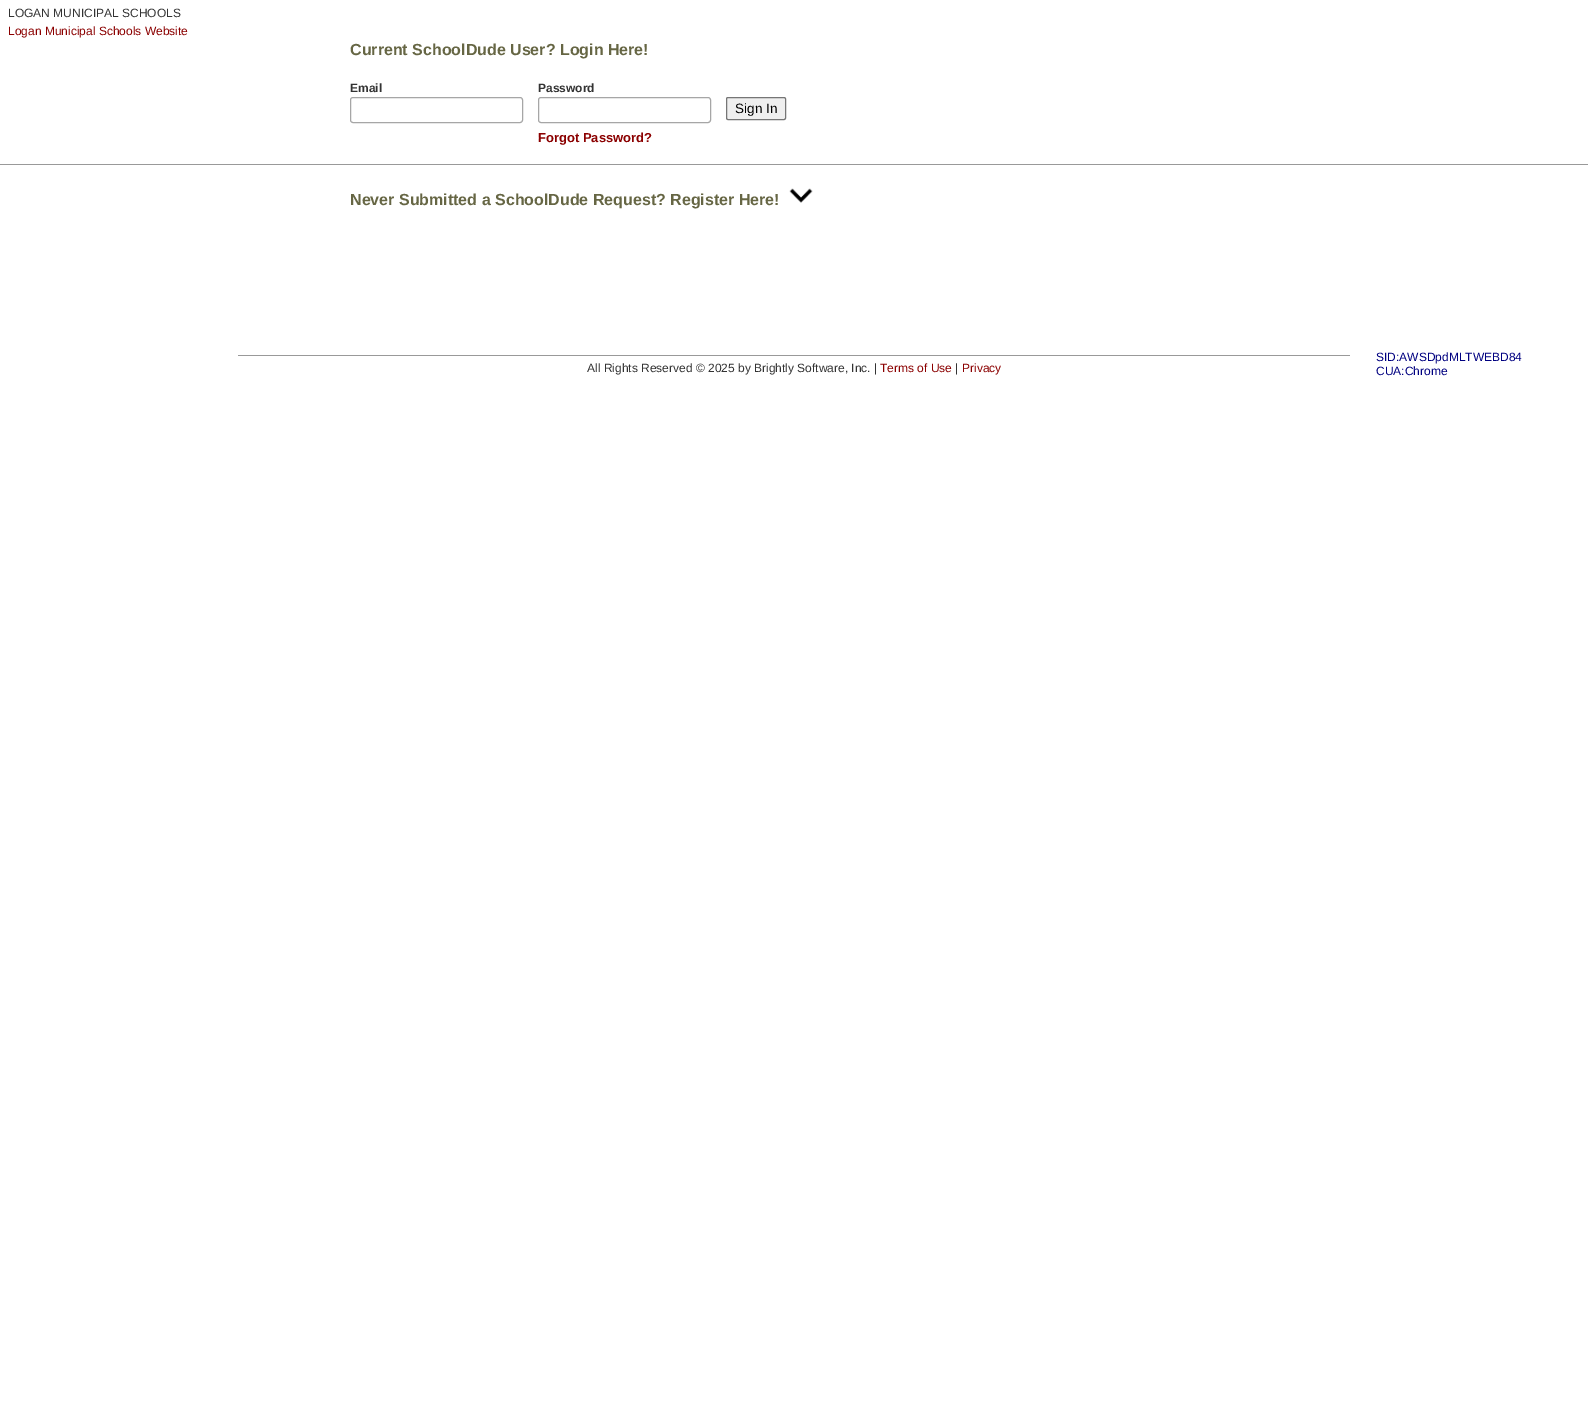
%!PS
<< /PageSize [1588 1422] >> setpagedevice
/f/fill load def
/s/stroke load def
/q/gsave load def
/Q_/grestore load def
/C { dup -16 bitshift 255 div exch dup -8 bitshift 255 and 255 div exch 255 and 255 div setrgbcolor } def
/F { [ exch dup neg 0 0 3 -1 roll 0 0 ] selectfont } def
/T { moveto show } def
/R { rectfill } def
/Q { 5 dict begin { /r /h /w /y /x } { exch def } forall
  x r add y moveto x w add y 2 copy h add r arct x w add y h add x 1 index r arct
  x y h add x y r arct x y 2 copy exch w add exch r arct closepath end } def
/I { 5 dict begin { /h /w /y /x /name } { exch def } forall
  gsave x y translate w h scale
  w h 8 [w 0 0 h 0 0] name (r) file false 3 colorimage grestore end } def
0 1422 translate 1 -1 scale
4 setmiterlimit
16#FFFFFF C
0 0 1588 1422 R
/LiberationSans-Regular 12 F
16#333333 C
(LOGAN MUNICIPAL SCHOOLS) 8 17 T
16#8B0000 C
(Logan Municipal Schools Website) 8 35 T
/LiberationSans-Bold 16 F
16#666644 C
(Current SchoolDude User? Login Here!) 350 55 T
/LiberationSans-Bold 12 F
16#333333 C
(Email) 350 92 T
16#A6A6A6 C
350.5 97.5 172 25 2.5 Q s
16#333333 C
(Password) 538 92 T
16#A6A6A6 C
538.5 97.5 172 25 2.5 Q s
/LiberationSans-Bold 13 F
16#8B0000 C
(Forgot Password?) 538 142 T
16#EFEFEF C
726.5 97.5 59 22 1.5 Q q f Q_
16#767676 C
s
/LiberationSans-Regular 13.5 F
16#000000 C
(Sign In) 735 113 T
16#999999 C
0 164 1588 1 R
/LiberationSans-Bold 16 F
16#666644 C
(Never Submitted a SchoolDude Request? Register Here!) 350 205 T
(1.rgb) 789 188 24 15 I
16#999999 C
238 355 1112 1 R
/LiberationSans-Regular 12 F
16#333333 C
(All Rights Reserved © 2025 by Brightly Software, Inc. |) 587 372 T
16#8B0000 C
(Terms of Use) 880 372 T
16#333333 C
(|) 955 372 T
16#8B0000 C
(Privacy) 962 372 T
16#000080 C
(SID:AWSDpdMLTWEBD84) 1376 361 T
(CUA:Chrome) 1376 375 T
showpage
